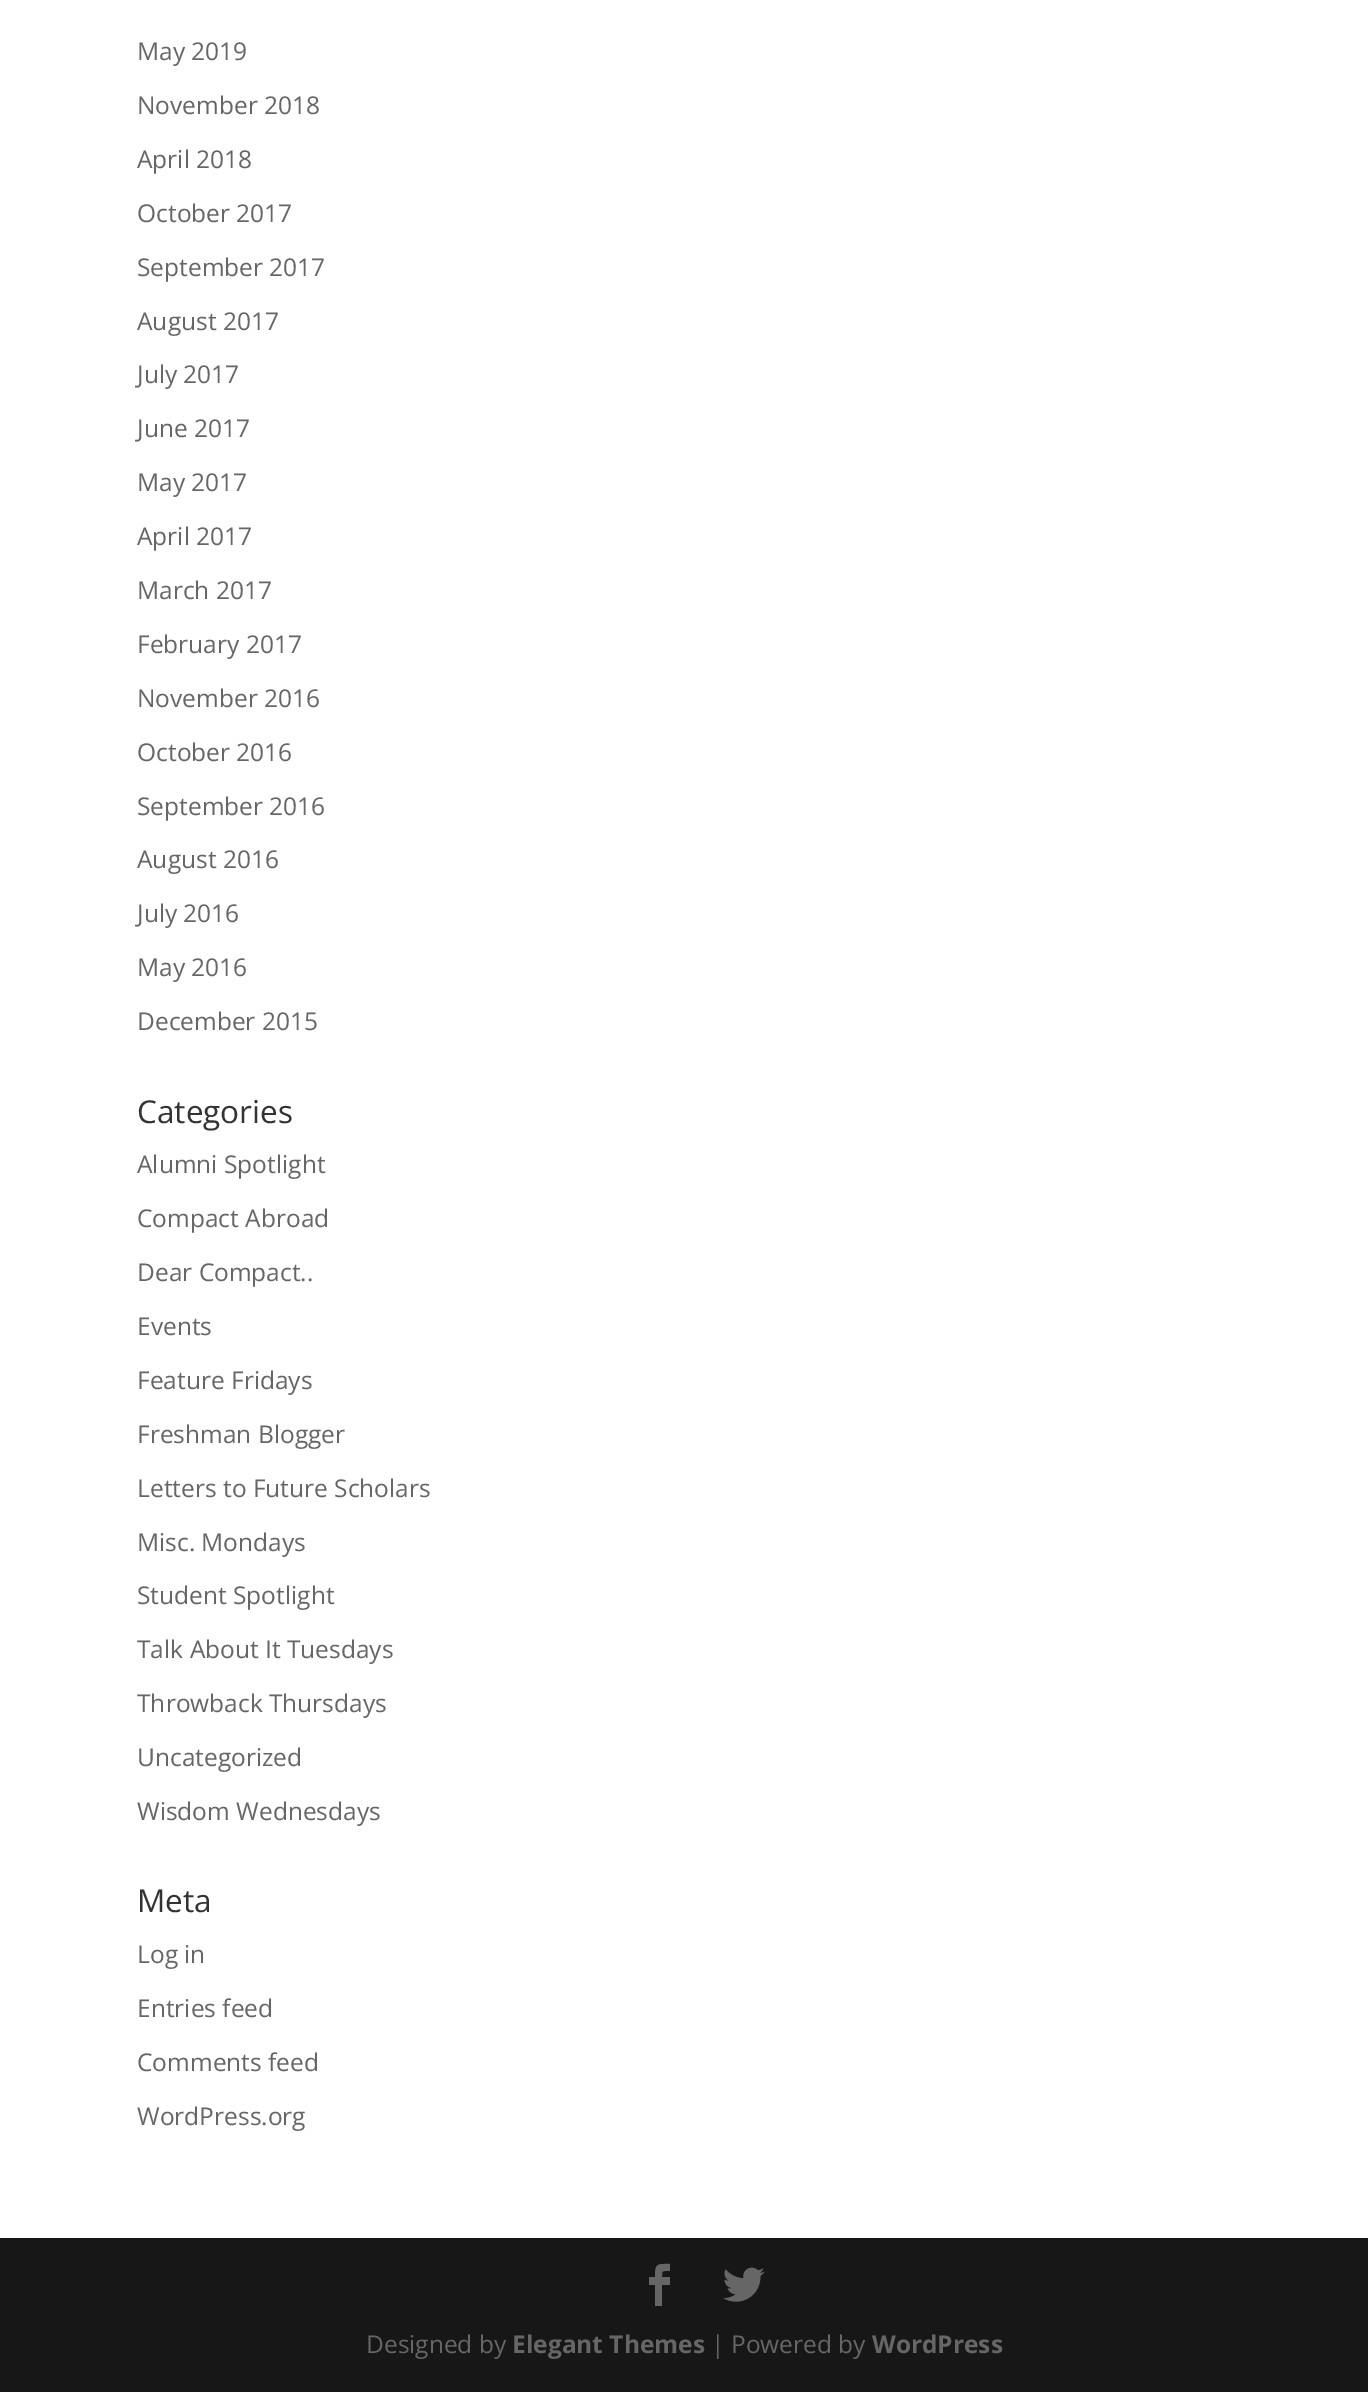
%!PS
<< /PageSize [1368 2392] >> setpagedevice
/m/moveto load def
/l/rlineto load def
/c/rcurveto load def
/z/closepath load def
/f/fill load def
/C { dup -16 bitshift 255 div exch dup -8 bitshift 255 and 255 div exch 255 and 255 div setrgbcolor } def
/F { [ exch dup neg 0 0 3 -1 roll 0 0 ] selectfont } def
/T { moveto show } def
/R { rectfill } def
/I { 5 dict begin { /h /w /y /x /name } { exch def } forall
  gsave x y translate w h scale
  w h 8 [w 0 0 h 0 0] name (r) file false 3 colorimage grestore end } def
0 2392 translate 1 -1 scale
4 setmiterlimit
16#FFFFFF C
0 0 1368 2392 R
/OpenSans-Regular 24.5 F
16#666666 C
(May 2019) 137 60 T
(November 2018) 137 114 T
(April 2018) 137 168 T
(October 2017) 137 222 T
(September 2017) 137 276 T
(August 2017) 137 330 T
(July 2017) 137 383 T
(June 2017) 137 437 T
(May 2017) 137 491 T
(April 2017) 137 545 T
(March 2017) 137 599 T
(February 2017) 137 653 T
(November 2016) 137 707 T
(October 2016) 137 761 T
(September 2016) 137 815 T
(August 2016) 137 868 T
(July 2016) 137 922 T
(May 2016) 137 976 T
(December 2015) 137 1030 T
/OpenSans-Regular 31.5 F
16#333333 C
(Categories) 137 1123 T
/OpenSans-Regular 24.5 F
16#666666 C
(Alumni Spotlight) 137 1173 T
(Compact Abroad) 137 1227 T
(Dear Compact..) 137 1281 T
(Events) 137 1335 T
(Feature Fridays) 137 1389 T
(Freshman Blogger) 137 1443 T
(Letters to Future Scholars) 137 1497 T
(Misc. Mondays) 137 1551 T
(Student Spotlight) 137 1604 T
(Talk About It Tuesdays) 137 1658 T
(Throwback Thursdays) 137 1712 T
(Uncategorized) 137 1766 T
(Wisdom Wednesdays) 137 1820 T
/OpenSans-Regular 31.5 F
16#333333 C
(Meta) 137 1912 T
/OpenSans-Regular 24.5 F
16#666666 C
(Log in) 137 1963 T
(Entries feed) 137 2017 T
(Comments feed) 137 2071 T
(WordPress.org) 137 2125 T
16#171717 C
0 2238 1368 154 R
16#666666 C
655 2306 m 7 0 l 0 -21 l 8 0 l 0 -8 l -8 0 l 0 -7 0 -6 8 -6 c 0 -7 l -13 0 -15 -1 -15 13 c -6 0 l 0 8 l 6 0 l z f
(1.rgb) 723 2267 42 35 I
(Designed by) 366 2353 T
/OpenSans-Bold 24.5 F
(Elegant Themes) 512 2353 T
/OpenSans-Regular 24.5 F
(| Powered by) 711 2353 T
/OpenSans-Bold 24.5 F
(WordPress) 872 2353 T
showpage
